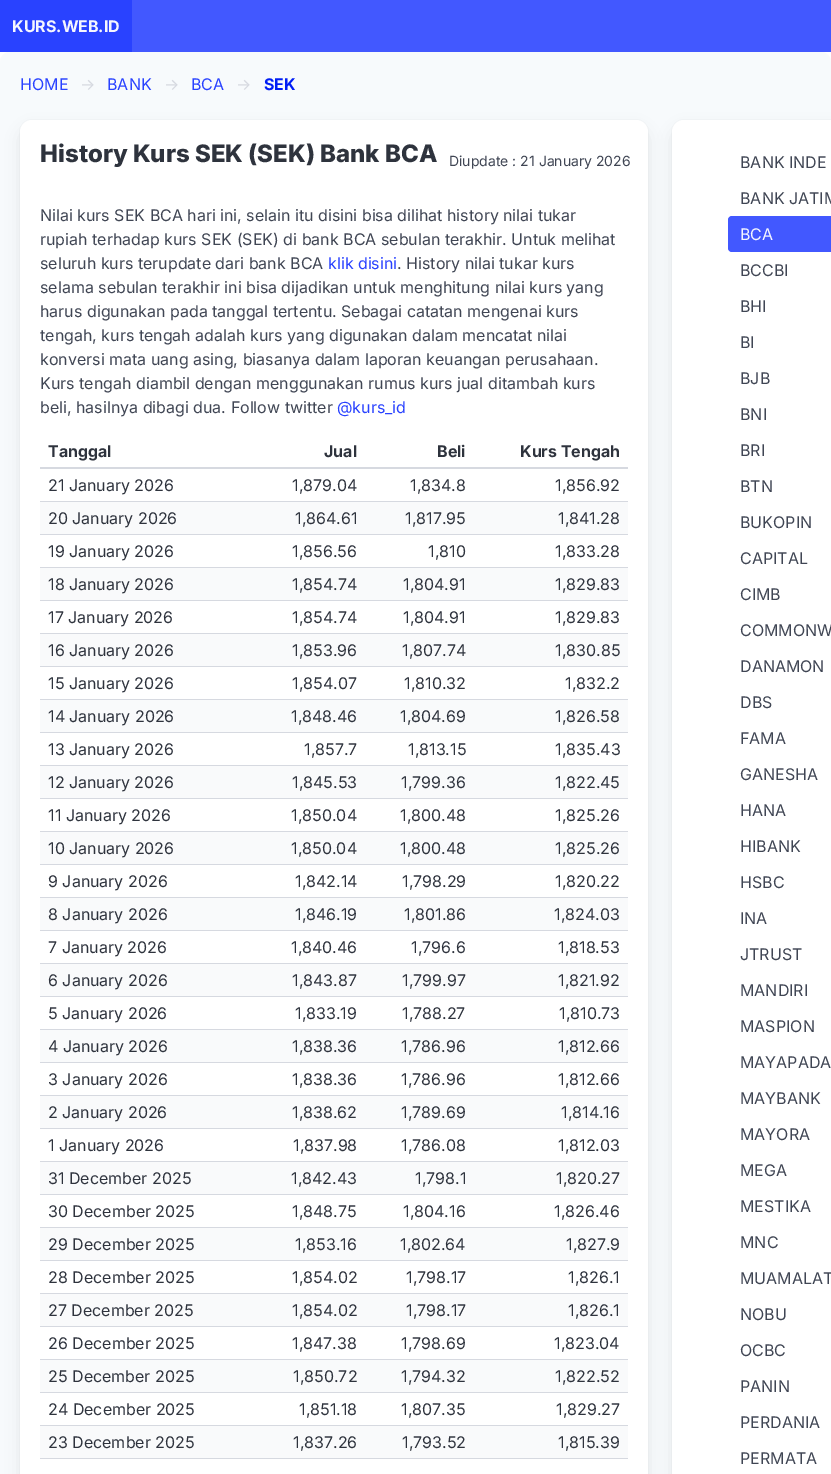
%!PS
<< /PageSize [831 1474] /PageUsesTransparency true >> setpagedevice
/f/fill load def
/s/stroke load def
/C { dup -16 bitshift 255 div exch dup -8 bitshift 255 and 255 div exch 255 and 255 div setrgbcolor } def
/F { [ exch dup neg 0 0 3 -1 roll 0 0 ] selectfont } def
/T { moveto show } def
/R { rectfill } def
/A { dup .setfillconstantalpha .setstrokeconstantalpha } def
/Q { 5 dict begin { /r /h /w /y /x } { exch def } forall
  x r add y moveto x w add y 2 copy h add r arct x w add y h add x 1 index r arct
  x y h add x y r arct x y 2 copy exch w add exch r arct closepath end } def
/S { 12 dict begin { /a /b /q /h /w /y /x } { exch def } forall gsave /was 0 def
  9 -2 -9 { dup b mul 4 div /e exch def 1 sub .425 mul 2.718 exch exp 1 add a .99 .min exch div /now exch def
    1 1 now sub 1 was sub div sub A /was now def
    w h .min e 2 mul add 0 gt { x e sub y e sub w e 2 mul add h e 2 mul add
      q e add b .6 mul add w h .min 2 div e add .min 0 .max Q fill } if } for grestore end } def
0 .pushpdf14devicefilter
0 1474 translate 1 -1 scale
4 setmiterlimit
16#FFFFFF C
0 0 831 1474 R
16#FAFAFA C
-.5 51.5 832 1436 12.5 Q s
16#4258FF C
132 0 699 52 R
16#2942FF C
0 0 132 52 R
/Inter-Bold 16 F
16#F5F6FF C
(KURS.WEB.ID) 12 32 T
16#F7FAFC C
0 52 831 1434 12 Q f
/Inter-Regular 16 F
16#2942FF C
(HOME) 20 90 T
16#D6D9E0 C
(→) 80 90 T
16#2942FF C
(BANK) 107 90 T
16#D6D9E0 C
(→) 164 90 T
16#2942FF C
(BCA) 191 90 T
16#D6D9E0 C
(→) 236 90 T
/Inter-Bold 16 F
16#001DF5 C
(SEK) 264 90 T
16#F2F5F7 C
19.5 119.5 629 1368 12.5 Q s
16#090A0C C
22 130 624 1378 10 8 .1 S
16#FFFFFF C
20 120 628 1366 12 Q f
/Inter-ExtraBold 24 F
16#2E333D C
(History Kurs SEK \(SEK\) Bank BCA) 40 162 T
/Inter-Regular 14 F
16#404654 C
(Diupdate : 21 January 2026) 449 166 T
/Inter-Regular 16 F
(Nilai kurs SEK BCA hari ini, selain itu disini bisa dilihat history nilai tukar) 40 221 T
(rupiah terhadap kurs SEK \(SEK\) di bank BCA sebulan terakhir. Untuk melihat) 40 245 T
(seluruh kurs terupdate dari bank BCA) 40 269 T
16#2942FF C
(klik disini) 328 269 T
16#404654 C
(. History nilai tukar kurs) 397 269 T
(selama sebulan terakhir ini bisa dijadikan untuk menghitung nilai kurs yang) 40 293 T
(harus digunakan pada tanggal tertentu. Sebagai catatan mengenai kurs) 40 317 T
(tengah, kurs tengah adalah kurs yang digunakan dalam mencatat nilai) 40 341 T
(konversi mata uang asing, biasanya dalam laporan keuangan perusahaan.) 40 365 T
(Kurs tengah diambil dengan menggunakan rumus kurs jual ditambah kurs) 40 389 T
(beli, hasilnya dibagi dua. Follow twitter) 40 413 T
16#2942FF C
(@kurs_id) 337 413 T
/Inter-Bold 16 F
16#2E333D C
(Tanggal) 48 457 T
(Jual) 324 457 T
(Beli) 437 457 T
16#D6D9E0 C
40 467 588 2 R
16#2E333D C
(Kurs Tengah) 520 457 T
/Inter-Regular 16 F
(21 January 2026) 48 491 T
(1,879.04) 292 491 T
(1,834.8) 410 491 T
16#D6D9E0 C
40 501 588 1 R
16#2E333D C
(1,856.92) 555 491 T
16#F9FAFB C
40 502 588 32 R
16#2E333D C
(20 January 2026) 48 524 T
(1,864.61) 295 524 T
(1,817.95) 405 524 T
16#D6D9E0 C
40 534 588 1 R
16#2E333D C
(1,841.28) 558 524 T
(19 January 2026) 48 557 T
(1,856.56) 292 557 T
(1,810) 428 557 T
16#D6D9E0 C
40 567 588 1 R
16#2E333D C
(1,833.28) 555 557 T
16#F9FAFB C
40 568 588 32 R
16#2E333D C
(18 January 2026) 48 590 T
(1,854.74) 292 590 T
(1,804.91) 403 590 T
16#D6D9E0 C
40 600 588 1 R
16#2E333D C
(1,829.83) 555 590 T
(17 January 2026) 48 623 T
(1,854.74) 292 623 T
(1,804.91) 403 623 T
16#D6D9E0 C
40 633 588 1 R
16#2E333D C
(1,829.83) 555 623 T
16#F9FAFB C
40 634 588 32 R
16#2E333D C
(16 January 2026) 48 656 T
(1,853.96) 292 656 T
(1,807.74) 402 656 T
16#D6D9E0 C
40 666 588 1 R
16#2E333D C
(1,830.85) 555 656 T
(15 January 2026) 48 689 T
(1,854.07) 292 689 T
(1,810.32) 404 689 T
16#D6D9E0 C
40 699 588 1 R
16#2E333D C
(1,832.2) 565 689 T
16#F9FAFB C
40 700 588 32 R
16#2E333D C
(14 January 2026) 48 722 T
(1,848.46) 291 722 T
(1,804.69) 400 722 T
16#D6D9E0 C
40 732 588 1 R
16#2E333D C
(1,826.58) 555 722 T
(13 January 2026) 48 755 T
(1,857.7) 304 755 T
(1,813.15) 408 755 T
16#D6D9E0 C
40 765 588 1 R
16#2E333D C
(1,835.43) 555 755 T
16#F9FAFB C
40 766 588 32 R
16#2E333D C
(12 January 2026) 48 788 T
(1,845.53) 292 788 T
(1,799.36) 401 788 T
16#D6D9E0 C
40 798 588 1 R
16#2E333D C
(1,822.45) 555 788 T
(11 January 2026) 48 821 T
(1,850.04) 291 821 T
(1,800.48) 400 821 T
16#D6D9E0 C
40 831 588 1 R
16#2E333D C
(1,825.26) 555 821 T
16#F9FAFB C
40 832 588 32 R
16#2E333D C
(10 January 2026) 48 854 T
(1,850.04) 291 854 T
(1,800.48) 400 854 T
16#D6D9E0 C
40 864 588 1 R
16#2E333D C
(1,825.26) 555 854 T
(9 January 2026) 48 887 T
(1,842.14) 295 887 T
(1,798.29) 402 887 T
16#D6D9E0 C
40 897 588 1 R
16#2E333D C
(1,820.22) 555 887 T
16#F9FAFB C
40 898 588 32 R
16#2E333D C
(8 January 2026) 48 920 T
(1,846.19) 295 920 T
(1,801.86) 404 920 T
16#D6D9E0 C
40 930 588 1 R
16#2E333D C
(1,824.03) 554 920 T
(7 January 2026) 48 953 T
(1,840.46) 291 953 T
(1,796.6) 411 953 T
16#D6D9E0 C
40 963 588 1 R
16#2E333D C
(1,818.53) 558 953 T
16#F9FAFB C
40 964 588 32 R
16#2E333D C
(6 January 2026) 48 986 T
(1,843.87) 292 986 T
(1,799.97) 402 986 T
16#D6D9E0 C
40 996 588 1 R
16#2E333D C
(1,821.92) 558 986 T
(5 January 2026) 48 1019 T
(1,833.19) 295 1019 T
(1,788.27) 402 1019 T
16#D6D9E0 C
40 1029 588 1 R
16#2E333D C
(1,810.73) 559 1019 T
16#F9FAFB C
40 1030 588 32 R
16#2E333D C
(4 January 2026) 48 1052 T
(1,838.36) 292 1052 T
(1,786.96) 401 1052 T
16#D6D9E0 C
40 1062 588 1 R
16#2E333D C
(1,812.66) 558 1052 T
(3 January 2026) 48 1085 T
(1,838.36) 292 1085 T
(1,786.96) 401 1085 T
16#D6D9E0 C
40 1095 588 1 R
16#2E333D C
(1,812.66) 558 1085 T
16#F9FAFB C
40 1096 588 32 R
16#2E333D C
(2 January 2026) 48 1118 T
(1,838.62) 292 1118 T
(1,789.69) 401 1118 T
16#D6D9E0 C
40 1128 588 1 R
16#2E333D C
(1,814.16) 561 1118 T
(1 January 2026) 48 1151 T
(1,837.98) 293 1151 T
(1,786.08) 401 1151 T
16#D6D9E0 C
40 1161 588 1 R
16#2E333D C
(1,812.03) 558 1151 T
16#F9FAFB C
40 1162 588 32 R
16#2E333D C
(31 December 2025) 48 1184 T
(1,842.43) 291 1184 T
(1,798.1) 415 1184 T
16#D6D9E0 C
40 1194 588 1 R
16#2E333D C
(1,820.27) 556 1184 T
(30 December 2025) 48 1217 T
(1,848.75) 292 1217 T
(1,804.16) 403 1217 T
16#D6D9E0 C
40 1227 588 1 R
16#2E333D C
(1,826.46) 554 1217 T
16#F9FAFB C
40 1228 588 32 R
16#2E333D C
(29 December 2025) 48 1250 T
(1,853.16) 295 1250 T
(1,802.64) 400 1250 T
16#D6D9E0 C
40 1260 588 1 R
16#2E333D C
(1,827.9) 566 1250 T
(28 December 2025) 48 1283 T
(1,854.02) 292 1283 T
(1,798.17) 406 1283 T
16#D6D9E0 C
40 1293 588 1 R
16#2E333D C
(1,826.1) 568 1283 T
16#F9FAFB C
40 1294 588 32 R
16#2E333D C
(27 December 2025) 48 1316 T
(1,854.02) 292 1316 T
(1,798.17) 406 1316 T
16#D6D9E0 C
40 1326 588 1 R
16#2E333D C
(1,826.1) 568 1316 T
(26 December 2025) 48 1349 T
(1,847.38) 292 1349 T
(1,798.69) 401 1349 T
16#D6D9E0 C
40 1359 588 1 R
16#2E333D C
(1,823.04) 554 1349 T
16#F9FAFB C
40 1360 588 32 R
16#2E333D C
(25 December 2025) 48 1382 T
(1,850.72) 293 1382 T
(1,794.32) 401 1382 T
16#D6D9E0 C
40 1392 588 1 R
16#2E333D C
(1,822.52) 555 1382 T
(24 December 2025) 48 1415 T
(1,851.18) 299 1415 T
(1,807.35) 401 1415 T
16#D6D9E0 C
40 1425 588 1 R
16#2E333D C
(1,829.27) 556 1415 T
16#F9FAFB C
40 1426 588 32 R
16#2E333D C
(23 December 2025) 48 1448 T
(1,837.26) 293 1448 T
(1,793.52) 402 1448 T
16#D6D9E0 C
40 1458 588 1 R
16#2E333D C
(1,815.39) 558 1448 T
16#F2F5F7 C
671.5 119.5 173 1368 12.5 Q s
16#090A0C C
674 130 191 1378 10 8 .1 S
16#FFFFFF C
672 120 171 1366 12 Q f
16#404654 C
(BANK INDE) 740 168 T
(BANK JATIM) 740 204 T
16#4258FF C
728 216 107 36 4 Q f
16#F5F6FF C
(BCA) 740 240 T
16#404654 C
(BCCBI) 740 276 T
(BHI) 740 312 T
(BI) 740 348 T
(BJB) 740 384 T
(BNI) 740 420 T
(BRI) 740 456 T
(BTN) 740 492 T
(BUKOPIN) 740 528 T
(CAPITAL) 740 564 T
(CIMB) 740 600 T
(COMMONW) 740 636 T
(DANAMON) 740 672 T
(DBS) 740 708 T
(FAMA) 740 744 T
(GANESHA) 740 780 T
(HANA) 740 816 T
(HIBANK) 740 852 T
(HSBC) 740 888 T
(INA) 740 924 T
(JTRUST) 740 960 T
(MANDIRI) 740 996 T
(MASPION) 740 1032 T
(MAYAPADA) 740 1068 T
(MAYBANK) 740 1104 T
(MAYORA) 740 1140 T
(MEGA) 740 1176 T
(MESTIKA) 740 1212 T
(MNC) 740 1248 T
(MUAMALAT) 740 1284 T
(NOBU) 740 1320 T
(OCBC) 740 1356 T
(PANIN) 740 1392 T
(PERDANIA) 740 1428 T
(PERMATA) 740 1464 T
.poppdf14devicefilter showpage
